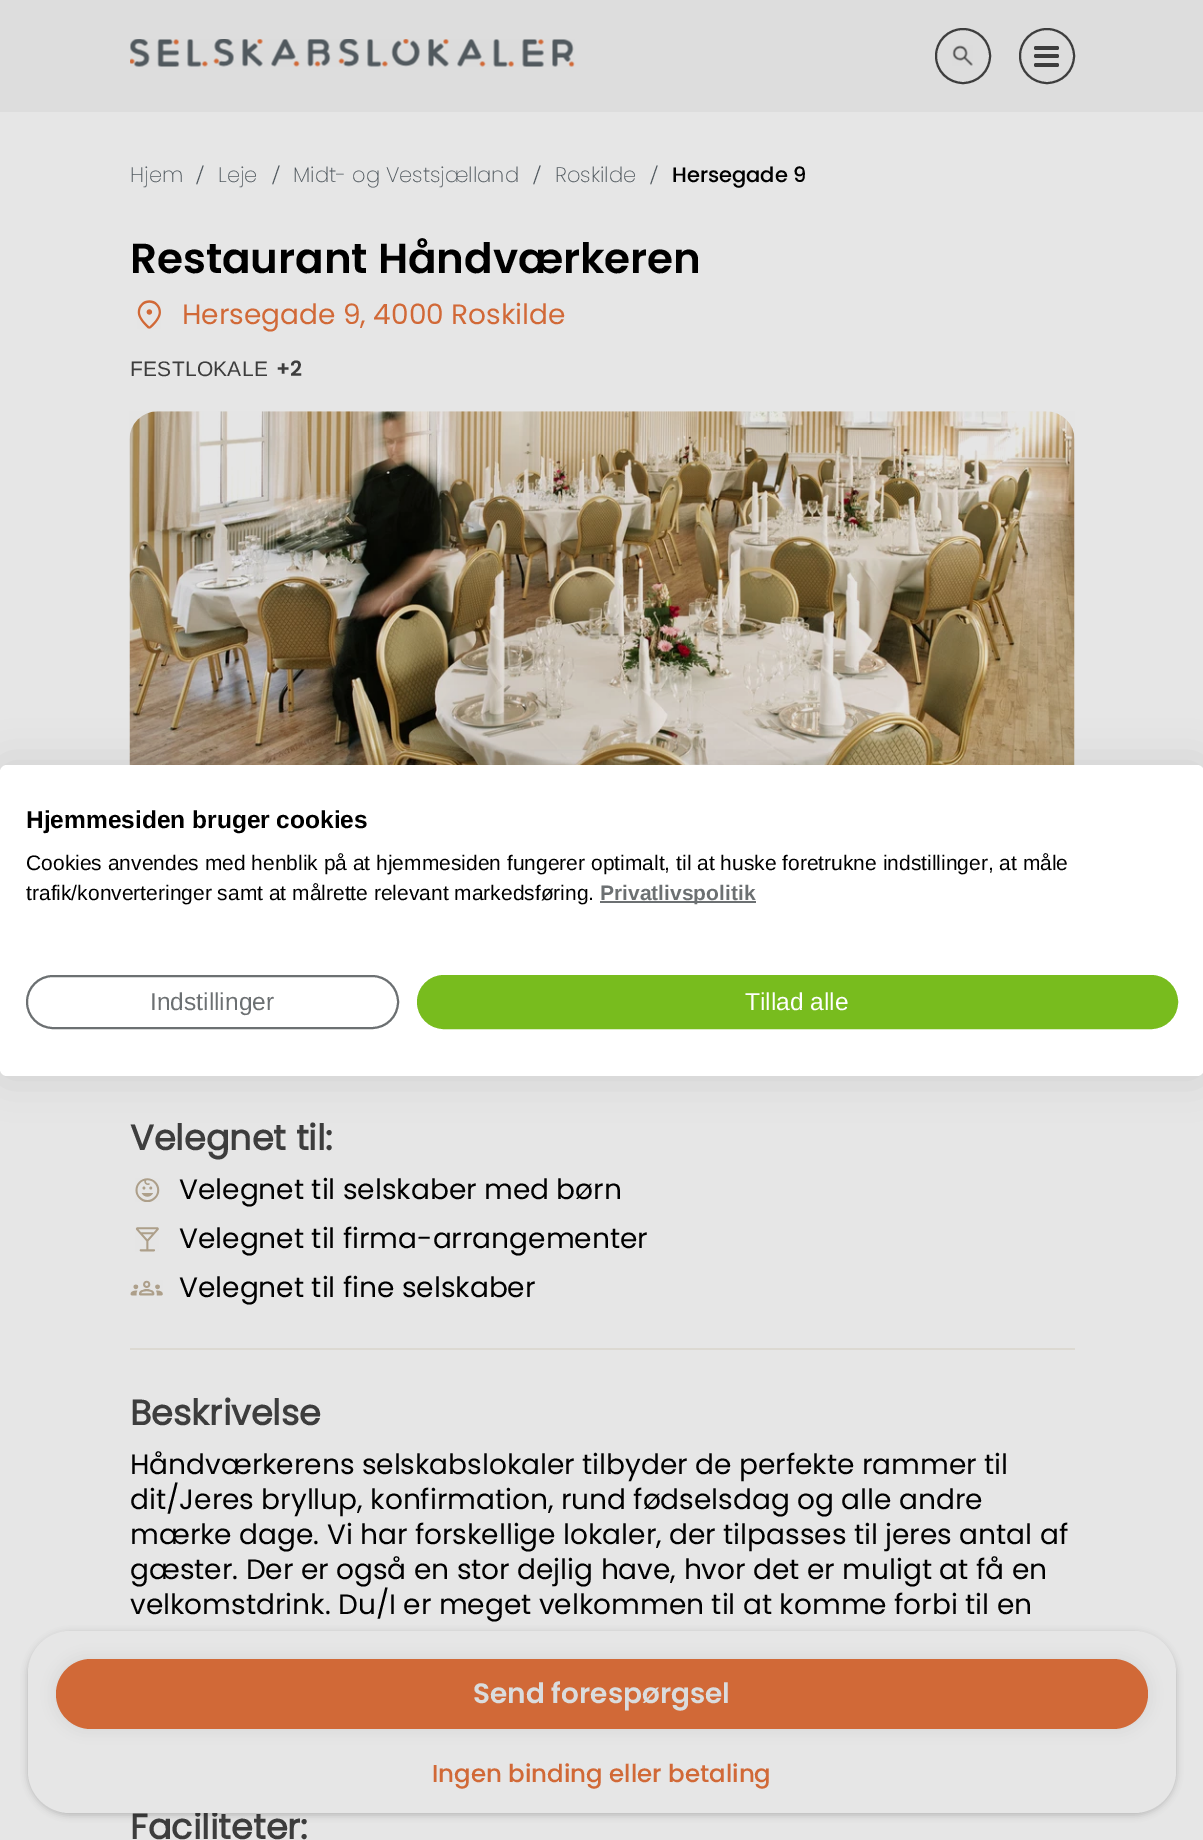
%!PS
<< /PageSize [1203 1840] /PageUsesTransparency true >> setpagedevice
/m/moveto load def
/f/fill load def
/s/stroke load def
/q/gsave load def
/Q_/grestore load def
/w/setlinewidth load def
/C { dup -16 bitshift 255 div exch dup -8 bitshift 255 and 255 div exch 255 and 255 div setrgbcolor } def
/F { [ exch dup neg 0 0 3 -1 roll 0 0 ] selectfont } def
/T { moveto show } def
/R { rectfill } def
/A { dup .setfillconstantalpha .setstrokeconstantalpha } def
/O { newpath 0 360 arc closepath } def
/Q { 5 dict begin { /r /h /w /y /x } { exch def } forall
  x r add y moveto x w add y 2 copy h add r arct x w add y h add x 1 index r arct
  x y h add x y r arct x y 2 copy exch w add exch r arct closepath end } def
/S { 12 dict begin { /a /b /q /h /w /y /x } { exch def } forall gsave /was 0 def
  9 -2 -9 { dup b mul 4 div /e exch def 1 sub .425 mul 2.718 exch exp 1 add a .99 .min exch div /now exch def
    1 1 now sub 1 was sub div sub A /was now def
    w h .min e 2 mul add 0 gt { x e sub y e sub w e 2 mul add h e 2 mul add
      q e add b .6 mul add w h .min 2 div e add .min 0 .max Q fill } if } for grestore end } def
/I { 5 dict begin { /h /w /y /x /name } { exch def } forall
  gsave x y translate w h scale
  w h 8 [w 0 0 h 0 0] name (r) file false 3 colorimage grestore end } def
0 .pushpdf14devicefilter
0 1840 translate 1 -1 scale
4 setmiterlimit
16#E6E6E6 C
0 0 1203 1840 R
16#DDDDDD C
0 0 1203 112 R
(1.rgb) 130 39 445 28 I
16#3D3D3D C
2 w
963 56 27 O s
(2.rgb) 952 45 21 21 I
1047 56 27 O s
1034 46 25 4 2 Q f
1034 54 25 4 2 Q f
1034 63 25 4 2 Q f
/Poppins-ExtraLight 21 F
16#51595F C
(Hjem) 130 182 T
/LiberationSerif-Regular 28 F
(/) 196 184 T
/Poppins-ExtraLight 21 F
(Leje) 218 182 T
/LiberationSerif-Regular 28 F
(/) 272 184 T
/Poppins-ExtraLight 21 F
(Midt- og Vestsjælland) 293 182 T
/LiberationSerif-Regular 28 F
(/) 533 184 T
/Poppins-ExtraLight 21 F
(Roskilde) 555 182 T
/LiberationSerif-Regular 28 F
(/) 650 184 T
/Poppins-Medium 21 F
16#000000 C
(Hersegade 9) 672 182 T
/Poppins-SemiBold 42 F
(Restaurant Håndværkeren) 130 273 T
(3.rgb) 137 300 24 29 I
/Poppins-Regular 28 F
16#D16937 C
(Hersegade 9, 4000 Roskilde) 182 324 T
/LiberationSans-Regular 21 F
16#3D3D3D C
130 376 m .25 0 (FESTLOKALE) ashow
/Poppins-SemiBold 21 F
276 376 m .25 0 (+2) ashow
(4.rgb) 129 411 946 354 I
16#DCD9D2 C
130 1348 945 2 R
/Poppins-Bold 35 F
16#3D3D3D C
(Velegnet til:) 130 1150 T
(5.rgb) 135 1178 25 24 I
/Poppins-Regular 28 F
16#000000 C
(Velegnet til selskaber med børn) 179 1199 T
(6.rgb) 135 1227 24 25 I
(Velegnet til firma-arrangementer) 179 1248 T
(7.rgb) 130 1280 33 16 I
(Velegnet til fine selskaber) 179 1297 T
/Poppins-Bold 35 F
16#3D3D3D C
(Beskrivelse) 130 1425 T
/Poppins-Regular 28 F
16#000000 C
(Håndværkerens selskabslokaler tilbyder de perfekte rammer til) 130 1474 T
(dit/Jeres bryllup, konfirmation, rund fødselsdag og alle andre) 130 1509 T
(mærke dage. Vi har forskellige lokaler, der tilpasses til jeres antal af) 130 1544 T
(gæster. Der er også en stor dejlig have, hvor det er muligt at få en) 130 1579 T
(velkomstdrink. Du/I er meget velkommen til at komme forbi til en) 130 1614 T
/Poppins-Bold 35 F
16#3D3D3D C
(Faciliteter:) 130 1839 T
16#000000 C
28 1633 1148 182 42 3.5 .2 S
16#E6E6E6 C
28 1631 1148 182 42 Q f
16#121212 C
56 1659 1092 70 35 7 .08 S
16#D16937 C
56 1659 1092 70 35 Q f
/Poppins-SemiBold 28 F
16#DADCDD C
(Send forespørgsel) 473 1703 T
/Poppins-Medium 24.5 F
16#D16937 C
(Ingen binding eller betaling) 432 1782 T
16#000000 C
0 765 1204 311 7 21 .1 S
16#FFFFFF C
0 765 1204 311 7 Q f
/LiberationSans-Bold 24.5 F
16#000000 C
(Hjemmesiden bruger cookies) 26 828 T
/LiberationSans-Regular 21 F
(Cookies anvendes med henblik på at hjemmesiden fungerer optimalt, til at huske foretrukne indstillinger, at måle) 26 870 T
(trafik/konverteringer samt at målrette relevant markedsføring.) 26 900 T
16#6C7072 C
600 901 156 2 R
/LiberationSans-Bold 21 F
(Privatlivspolitik) 600 900 T
27 976 371 52 26 Q s
/LiberationSans-Regular 24.5 F
(Indstillinger) 150 1010 T
16#78BC1E C
418 976 759 52 26 Q q f Q_
s
16#FFFFFF C
(Tillad alle) 745 1010 T
.poppdf14devicefilter showpage
